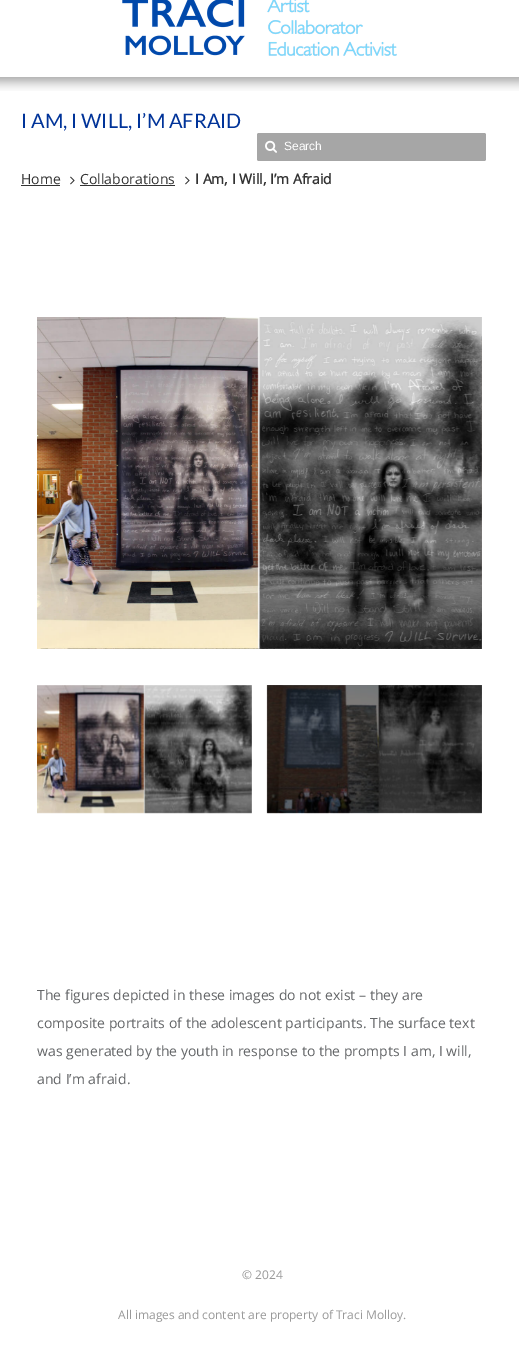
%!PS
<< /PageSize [519 1366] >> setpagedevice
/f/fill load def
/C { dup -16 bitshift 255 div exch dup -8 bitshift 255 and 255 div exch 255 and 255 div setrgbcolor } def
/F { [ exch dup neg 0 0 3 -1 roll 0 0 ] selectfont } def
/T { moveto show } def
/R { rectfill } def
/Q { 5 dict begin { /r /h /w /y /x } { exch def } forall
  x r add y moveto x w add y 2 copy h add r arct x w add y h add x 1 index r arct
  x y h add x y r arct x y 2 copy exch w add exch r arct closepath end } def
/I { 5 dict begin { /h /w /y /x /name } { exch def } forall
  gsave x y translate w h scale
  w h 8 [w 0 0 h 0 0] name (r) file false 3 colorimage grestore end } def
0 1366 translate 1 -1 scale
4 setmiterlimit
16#FFFFFF C
0 0 519 1366 R
(1.rgb) 122 0 275 56 I
16#808080 C
267 685 215 128 R
(2.rgb) 0 77 519 14 I
/Lato-Regular 20 F
16#003399 C
(I AM, I WILL, I’M AFRAID) 21 128 T
16#A6A6A6 C
257 133 229 28 2 Q f
(3.rgb) 265 140 12 13 I
/LiberationSans-Regular 12 F
16#FFFFFF C
(Search) 284 150 T
/OpenSans-Regular 14 F
16#333333 C
(Home) 21 184 T
21 185 39 1 R
(4.rgb) 70 176 5 9 I
(Collaborations) 80 184 T
80 185 95 1 R
(4.rgb) 185 176 5 9 I
/OpenSans-Bold 14 F
(I Am, I Will, I’m Afraid) 195 184 T
(5.rgb) 37 317 445 332 I
(6.rgb) 481 336 1 292 I
(7.rgb) 37 685 215 129 I
(8.rgb) 266 685 216 129 I
/OpenSans-Regular 14 F
16#646668 C
(The figures depicted in these images do not exist – they are) 37 1000 T
(composite portraits of the adolescent participants. The surface text) 37 1028 T
(was generated by the youth in response to the prompts I am, I will,) 37 1056 T
(and I’m afraid.) 37 1084 T
/OpenSans-Regular 12 F
16#999999 C
(© 2024) 242 1279 T
(All images and content are property of Traci Molloy.) 118 1319 T
showpage
